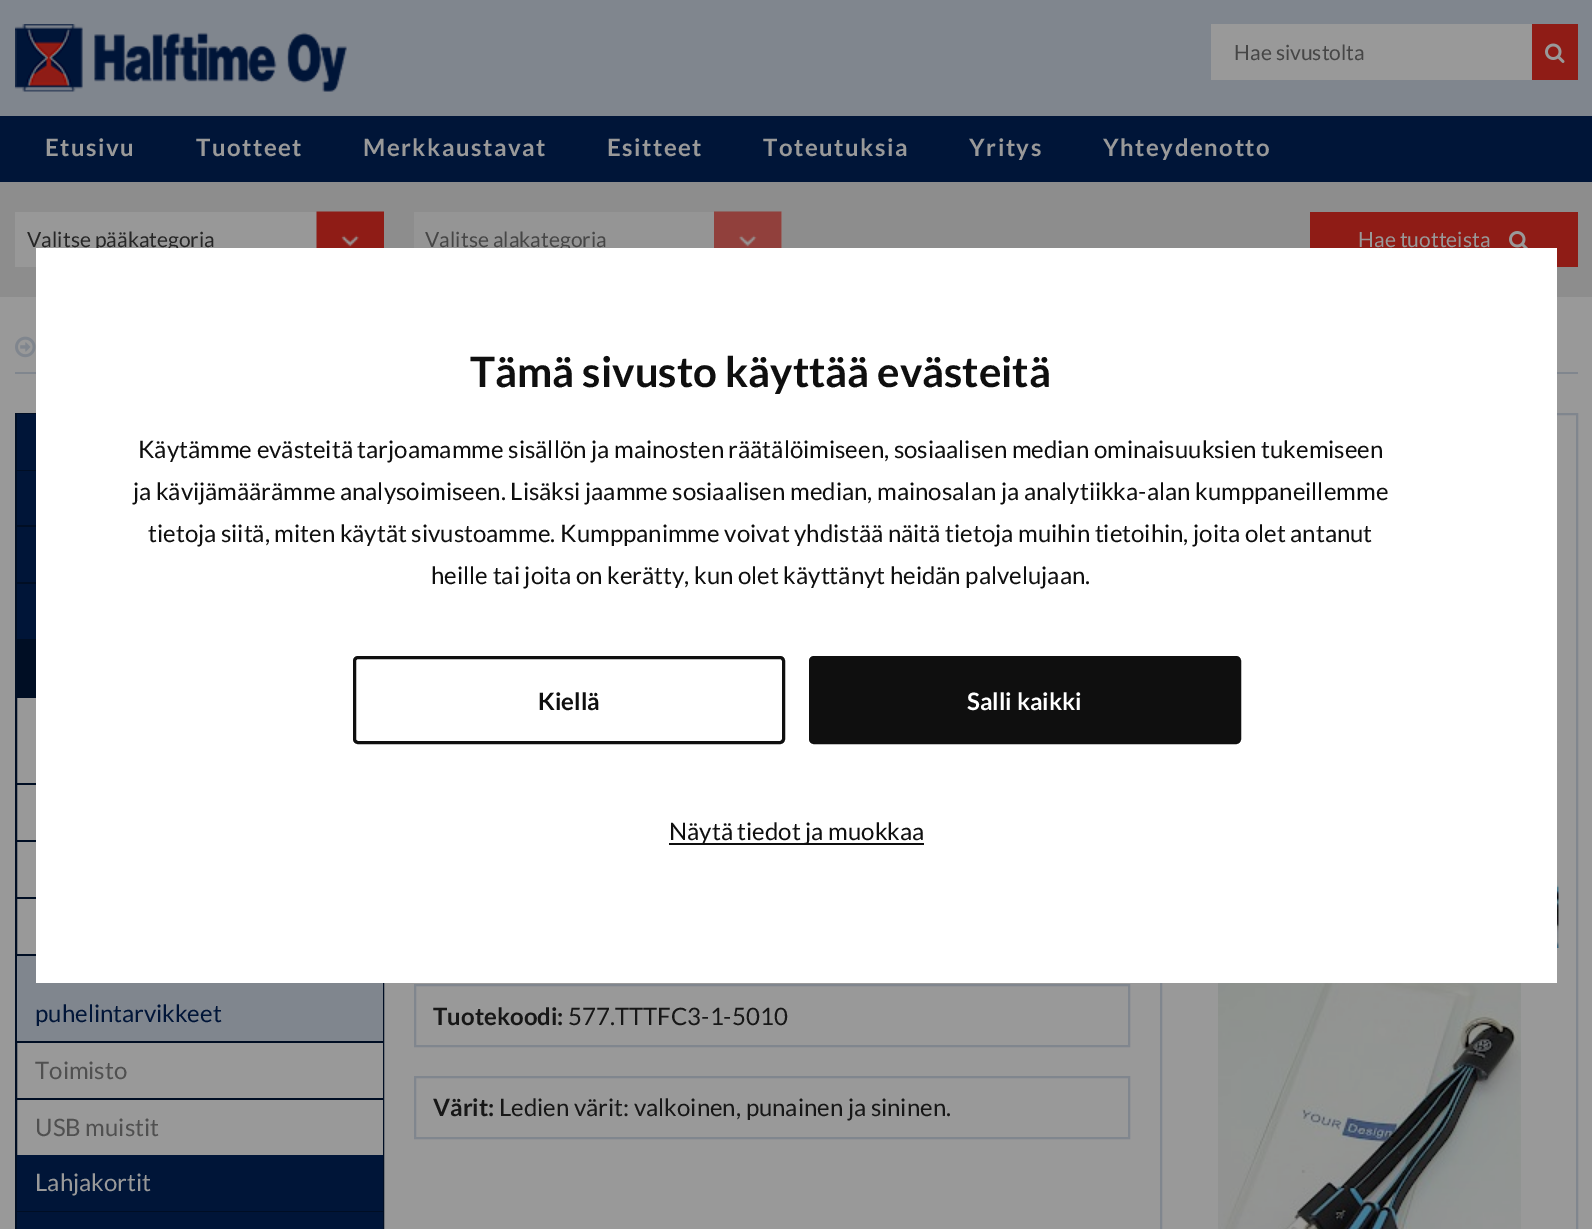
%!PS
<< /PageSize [1592 1229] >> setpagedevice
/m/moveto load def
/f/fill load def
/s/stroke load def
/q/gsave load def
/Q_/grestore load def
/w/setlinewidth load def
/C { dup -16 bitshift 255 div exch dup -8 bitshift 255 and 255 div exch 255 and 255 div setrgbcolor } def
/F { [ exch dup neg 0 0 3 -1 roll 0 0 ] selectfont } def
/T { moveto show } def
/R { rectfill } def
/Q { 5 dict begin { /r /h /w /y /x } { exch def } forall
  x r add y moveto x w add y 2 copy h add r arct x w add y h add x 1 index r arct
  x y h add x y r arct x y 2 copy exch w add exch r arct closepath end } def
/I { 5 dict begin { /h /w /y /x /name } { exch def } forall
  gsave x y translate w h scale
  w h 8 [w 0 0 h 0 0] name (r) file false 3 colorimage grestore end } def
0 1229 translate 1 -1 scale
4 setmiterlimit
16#001538 C
0 0 1592 1229 R
16#80868E C
0 0 1592 116 R
(1.rgb) 15 24 332 68 I
16#999999 C
1211 24 321 56 R
/Lato-Regular 21 F
16#464646 C
(Hae sivustolta) 1234 60 T
16#8F1C16 C
1532 24 46 56 R
(2.rgb) 1545 43 20 20 I
/Lato-Bold 24 F
16#999999 C
45 156 m 1.5 0 (Etusivu) ashow
196 156 m 1.5 0 (Tuotteet) ashow
363 156 m 1.5 0 (Merkkaustavat) ashow
607 156 m 1.5 0 (Esitteet) ashow
763 156 m 1.5 0 (Toteutuksia) ashow
969 156 m 1.5 0 (Yritys) ashow
1103 156 m 1.5 0 (Yhteydenotto) ashow
16#8D8D8D C
0 182 1592 115 R
16#989898 C
15 212 302 55 R
(3.rgb) 316 211 68 37 I
/Lato-Regular 21 F
16#262626 C
(Valitse pääkategoria) 27 247 T
16#959595 C
414 212 368 36 R
(4.rgb) 714 211 68 37 I
16#464646 C
(Valitse alakategoria) 425 247 T
16#8F1C16 C
1310 212 268 55 R
16#999999 C
(Hae tuotteista) 1358 247 T
(5.rgb) 1509 231 19 17 I
0 297 1592 932 R
16#80868E C
15 372 1563 2 R
(6.rgb) 15 336 21 22 I
16#000E24 C
2 w
16 414 367 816 rectstroke
16#80868E C
17 956 366 85 R
1161 414 416 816 rectstroke
16#FFFFFF C
36 248 1521 735 R
/Lato-Bold 42 F
16#0F0F0F C
(Tämä sivusto käyttää evästeitä) 470 387 T
/Lato-Regular 24 F
(Käytämme evästeitä tarjoamamme sisällön ja mainosten räätälöimiseen, sosiaalisen median ominaisuuksien tukemiseen) 138 458 T
(ja kävijämäärämme analysoimiseen. Lisäksi jaamme sosiaalisen median, mainosalan ja analytiikka-alan kumppaneillemme) 133 500 T
(tietoja siitä, miten käytät sivustoamme. Kumppanimme voivat yhdistää näitä tietoja muihin tietoihin, joita olet antanut) 148 542 T
(heille tai joita on kerätty, kun olet käyttänyt heidän palvelujaan.) 431 584 T
3 w
354.5 657.5 429 85 3.5 Q s
/Lato-Bold 24 F
(Kiellä) 538 710 T
810.5 657.5 429 85 3.5 Q q f Q_
s
16#FFFFFF C
(Salli kaikki) 967 710 T
16#0F0F0F C
669 843 255 2 R
/Lato-Regular 24 F
(Näytä tiedot ja muokkaa) 669 840 T
16#001538 C
17 414 19 56 R
16#000E24 C
17 470 19 1 R
16#001538 C
17 471 19 54 R
16#000E24 C
17 525 19 2 R
16#001538 C
17 527 19 55 R
16#000E24 C
17 582 19 2 R
16#001538 C
17 584 19 55 R
16#000E24 C
17 639 19 59 R
17 783 19 2 R
17 840 19 2 R
17 897 19 2 R
17 954 19 2 R
17 1041 366 2 R
16#001538 C
(puhelintarvikkeet) 35 1022 T
16#999999 C
382 1043 1 55 R
16#000E24 C
17 1098 366 2 R
16#505050 C
(Toimisto) 35 1079 T
16#999999 C
382 1100 1 55 R
16#505050 C
(USB muistit) 35 1136 T
16#001538 C
17 1155 366 56 R
16#000E24 C
17 1211 366 1 R
16#999999 C
(Lahjakortit) 35 1191 T
16#001538 C
17 1212 366 17 R
16#80868E C
2 w
415 985 714 61 rectstroke
/Lato-Bold 24 F
16#171717 C
(Tuotekoodi:) 433 1025 T
/Lato-Regular 24 F
(577.TTTFC3-1-5010) 568 1025 T
16#80868E C
415 1077 714 61 rectstroke
/Lato-Bold 24 F
16#171717 C
(Värit:) 433 1116 T
/Lato-Regular 24 F
(Ledien värit: valkoinen, punainen ja sininen.) 499 1116 T
(7.rgb) 1557 741 2 207 I
(8.rgb) 1218 983 303 246 I
showpage
